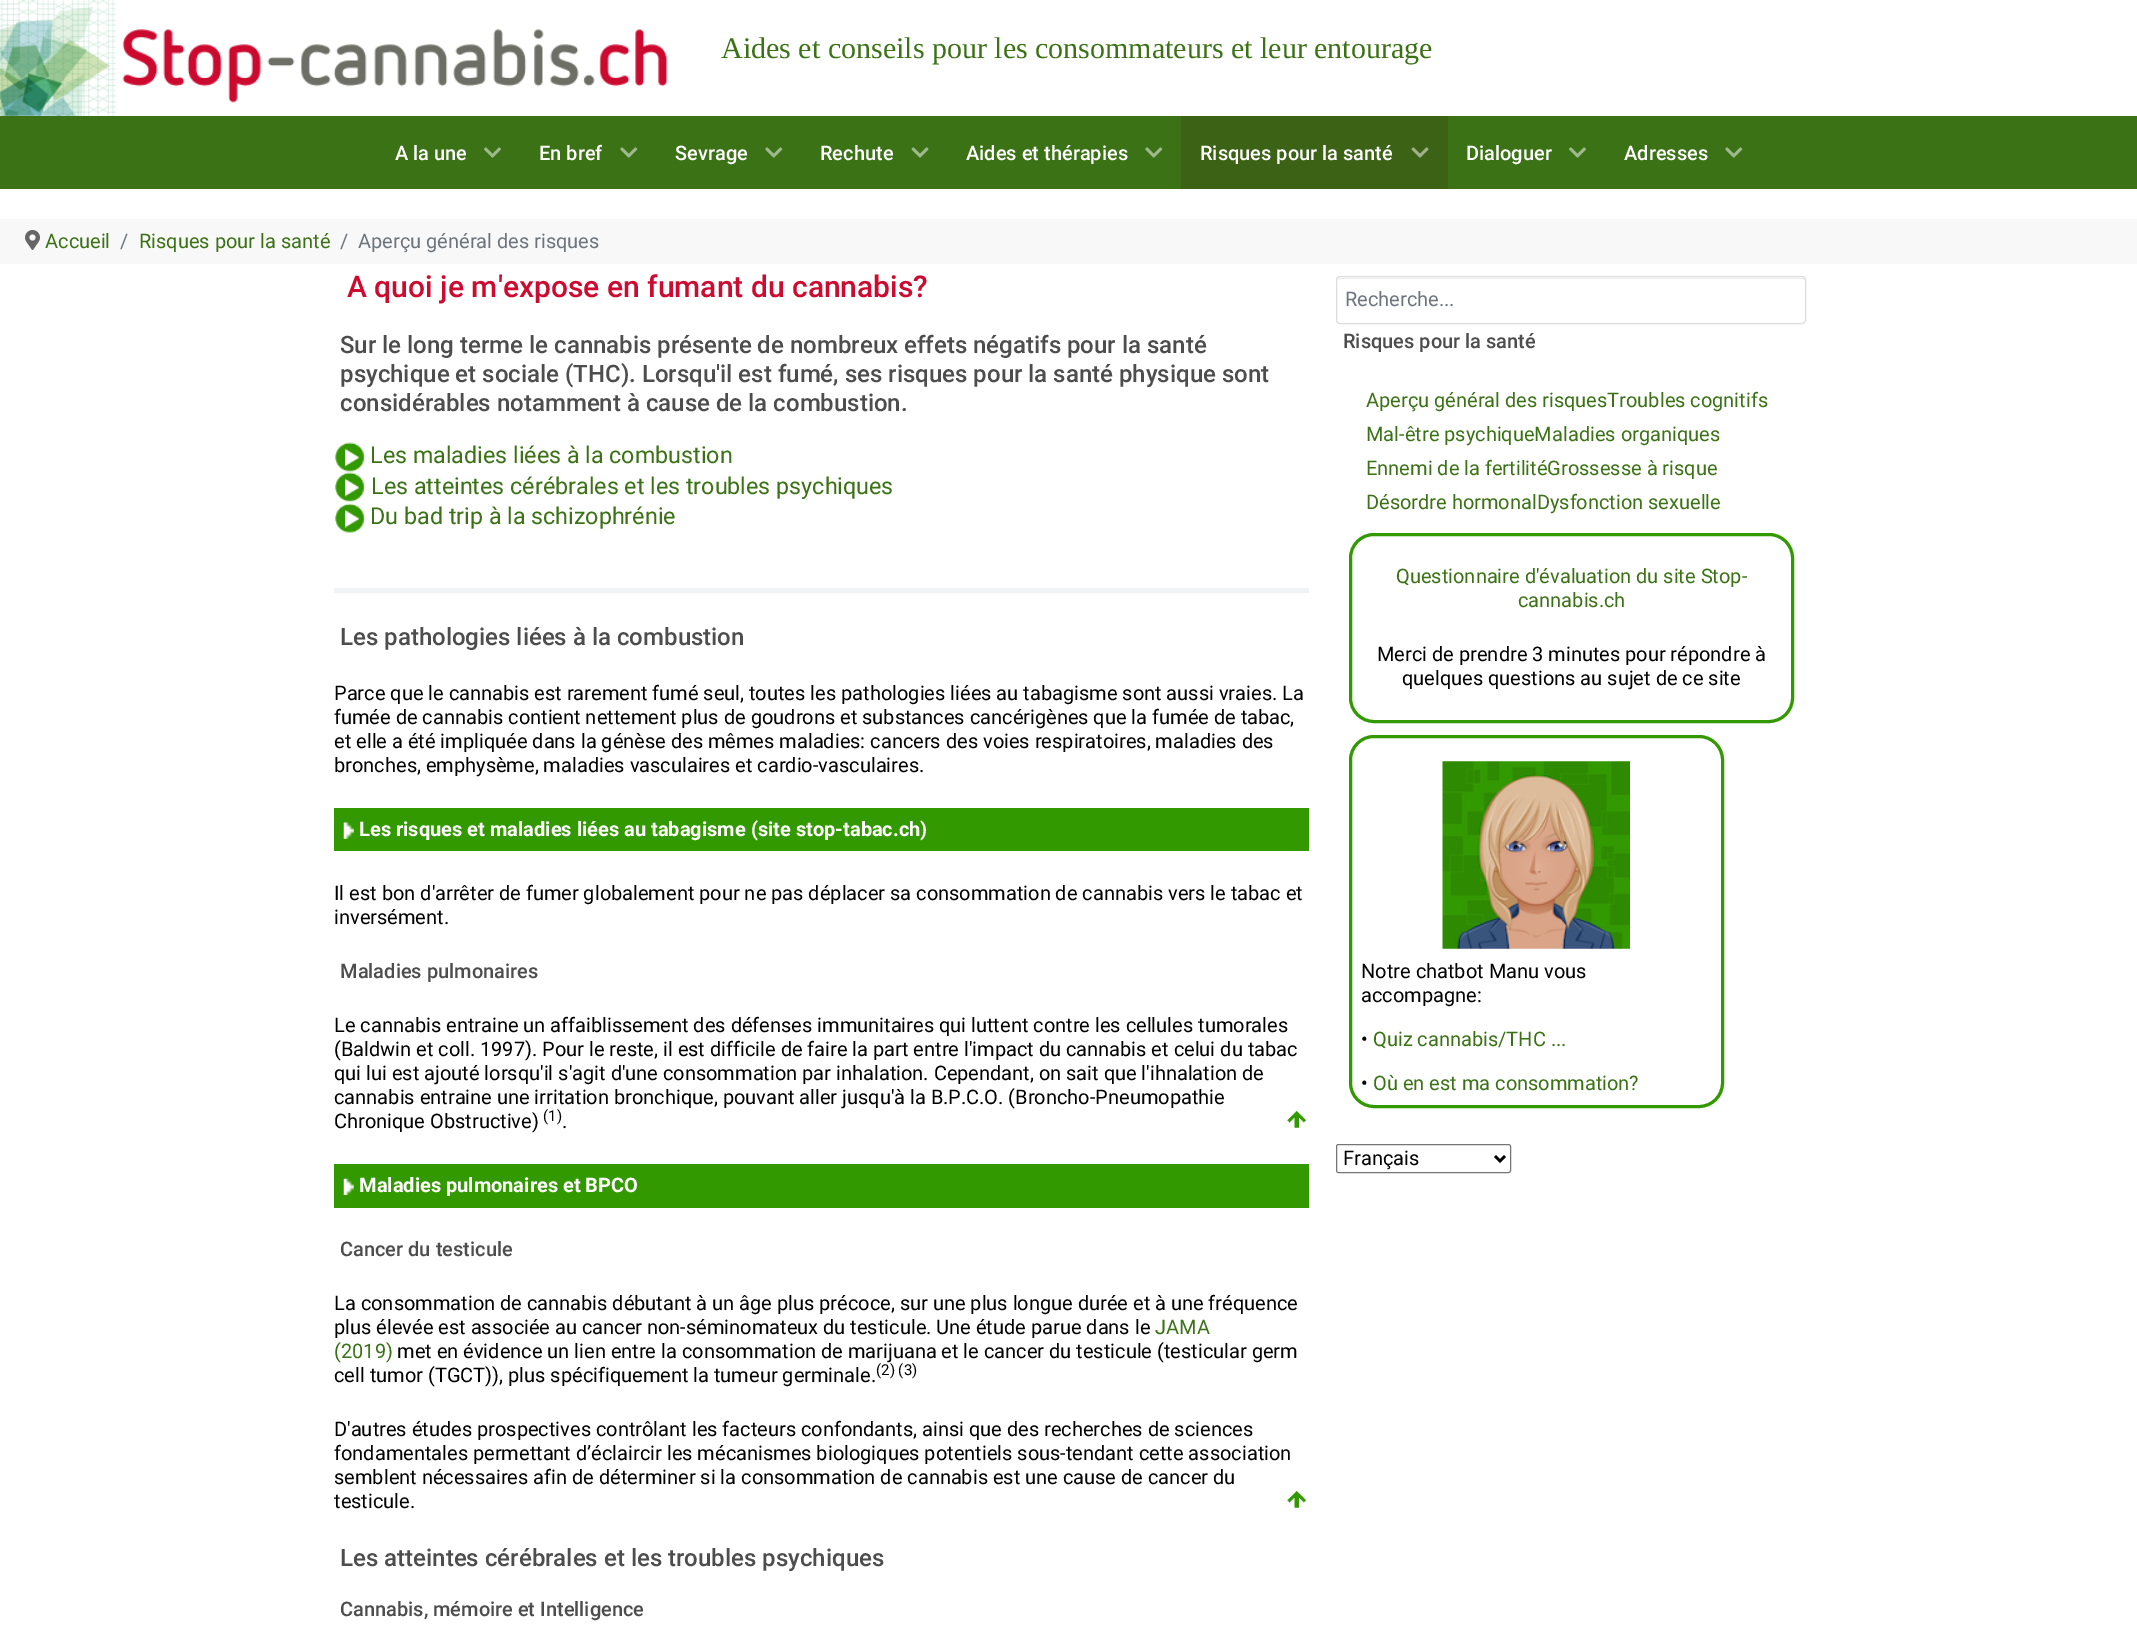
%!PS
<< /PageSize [2137 1634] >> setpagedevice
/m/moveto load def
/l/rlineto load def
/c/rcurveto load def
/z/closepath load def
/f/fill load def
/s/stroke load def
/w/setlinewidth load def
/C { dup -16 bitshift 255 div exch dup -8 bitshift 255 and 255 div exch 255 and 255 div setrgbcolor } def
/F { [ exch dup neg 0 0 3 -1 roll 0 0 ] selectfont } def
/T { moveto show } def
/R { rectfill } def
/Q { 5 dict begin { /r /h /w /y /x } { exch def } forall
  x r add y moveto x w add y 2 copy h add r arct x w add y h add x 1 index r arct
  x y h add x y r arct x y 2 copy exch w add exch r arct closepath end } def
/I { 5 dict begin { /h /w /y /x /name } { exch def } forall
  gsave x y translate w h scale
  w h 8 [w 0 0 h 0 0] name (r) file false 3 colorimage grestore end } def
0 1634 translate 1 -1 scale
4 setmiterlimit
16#FFFFFF C
0 0 2137 1634 R
(1.rgb) 0 0 668 116 I
/LiberationSerif-Regular 30 F
16#3C7216 C
(Aides et conseils pour les consommateurs et leur entourage) 721 58 T
0 116 2137 73 R
/Roboto-Medium 20 F
16#FFFFFF C
(A la une) 395 160 T
(2.rgb) 484 147 17 11 I
(En bref) 539 160 T
(3.rgb) 620 147 18 11 I
(Sevrage) 675 160 T
(3.rgb) 765 147 18 11 I
(Rechute) 820 160 T
(4.rgb) 911 147 18 11 I
(Aides et thérapies) 966 160 T
(3.rgb) 1145 147 18 11 I
16#3C6216 C
1181 116 267 73 R
16#FFFFFF C
(Risques pour la santé) 1200 160 T
(5.rgb) 1411 147 18 11 I
(Dialoguer) 1466 160 T
(2.rgb) 1569 147 17 11 I
(Adresses) 1624 160 T
(3.rgb) 1725 147 18 11 I
16#F8F8F8 C
0 219 2137 45 R
(6.rgb) 25 230 15 20 I
/Roboto-Regular 20 F
16#3C7216 C
(Accueil) 45 248 T
16#6C757D C
(/) 120 248 T
16#3C7216 C
(Risques pour la santé) 139 248 T
16#6C757D C
(/) 340 248 T
(Aperçu général des risques) 358 248 T
/Roboto-Medium 30 F
16#CD0B31 C
(A quoi je m'expose en fumant du cannabis?) 347 297 T
/Roboto-Medium 24 F
16#4D4D4D C
(Sur le long terme le cannabis présente de nombreux effets négatifs pour la santé) 340 353 T
(psychique et sociale \(THC\). Lorsqu'il est fumé, ses risques pour la santé physique sont) 340 382 T
(considérables notamment à cause de la combustion.) 340 411 T
(7.rgb) 334 442 31 30 I
/Roboto-Regular 23.3 F
16#3C7216 C
(Les maladies liées à la combustion) 370 463 T
(7.rgb) 334 472 31 30 I
(Les atteintes cérébrales et les troubles psychiques) 371 494 T
(8.rgb) 334 503 31 30 I
(Du bad trip à la schizophrénie) 370 524 T
16#F0F2F4 C
334 588 975 5 R
/Roboto-Medium 24 F
16#4D4D4D C
(Les pathologies liées à la combustion) 340 645 T
/Roboto-Regular 20 F
16#000000 C
(Parce que le cannabis est rarement fumé seul, toutes les pathologies liées au tabagisme sont aussi vraies. La) 334 700 T
(fumée de cannabis contient nettement plus de goudrons et substances cancérigènes que la fumée de tabac,) 334 724 T
(et elle a été impliquée dans la génèse des mêmes maladies: cancers des voies respiratoires, maladies des) 334 748 T
(bronches, emphysème, maladies vasculaires et cardio-vasculaires.) 334 772 T
16#339900 C
334 808 975 43 R
(9.rgb) 343 822 11 17 I
/Roboto-Bold 20 F
16#FFFFFF C
(Les risques et maladies liées au tabagisme \(site stop-tabac.ch\)) 359 836 T
/Roboto-Regular 20 F
16#000000 C
(Il est bon d'arrêter de fumer globalement pour ne pas déplacer sa consommation de cannabis vers le tabac et) 334 900 T
(inversément.) 334 924 T
/Roboto-Medium 20 F
16#4D4D4D C
(Maladies pulmonaires) 340 978 T
/Roboto-Regular 20 F
16#000000 C
(Le cannabis entraine un affaiblissement des défenses immunitaires qui luttent contre les cellules tumorales) 334 1032 T
(\(Baldwin et coll. 1997\). Pour le reste, il est difficile de faire la part entre l'impact du cannabis et celui du tabac) 334 1056 T
(qui lui est ajouté lorsqu'il s'agit d'une consommation par inhalation. Cependant, on sait que l'ihnalation de) 334 1080 T
(cannabis entraine une irritation bronchique, pouvant aller jusqu'à la B.P.C.O. \(Broncho-Pneumopathie) 334 1104 T
(Chronique Obstructive\)) 334 1128 T
/Roboto-Regular 15 F
(\(1\)) 543 1121 T
/Roboto-Regular 20 F
(.) 562 1128 T
(10.rgb) 1287 1110 20 18 I
16#339900 C
334 1164 975 44 R
(11.rgb) 343 1178 11 17 I
/Roboto-Bold 20 F
16#FFFFFF C
(Maladies pulmonaires et BPCO) 359 1192 T
/Roboto-Medium 20 F
16#4D4D4D C
(Cancer du testicule) 340 1256 T
/Roboto-Regular 20 F
16#000000 C
(La consommation de cannabis débutant à un âge plus précoce, sur une plus longue durée et à une fréquence) 334 1310 T
(plus élevée est associée au cancer non-séminomateux du testicule. Une étude parue dans le) 334 1334 T
16#3C7216 C
(JAMA) 1155 1334 T
(\(2019\)) 334 1358 T
16#000000 C
(met en évidence un lien entre la consommation de marijuana et le cancer du testicule \(testicular germ) 397 1358 T
(cell tumor \(TGCT\)\), plus spécifiquement la tumeur germinale.) 334 1382 T
/Roboto-Regular 15 F
(\(2\) \(3\)) 876 1375 T
/Roboto-Regular 20 F
(D'autres études prospectives contrôlant les facteurs confondants, ainsi que des recherches de sciences) 334 1436 T
(fondamentales permettant d’éclaircir les mécanismes biologiques potentiels sous-tendant cette association) 334 1460 T
(semblent nécessaires afin de déterminer si la consommation de cannabis est une cause de cancer du) 334 1484 T
(testicule.) 334 1508 T
(10.rgb) 1287 1490 20 18 I
/Roboto-Medium 24 F
16#4D4D4D C
(Les atteintes cérébrales et les troubles psychiques) 340 1566 T
/Roboto-Medium 20 F
(Cannabis, mémoire et Intelligence) 340 1616 T
16#ECECEC C
1340 279 m 462 0 l 2 0 3 1 3 2 c 0 -2 -1 -3 -3 -3 c -462 0 l -1 0 -2 1 -2 3 c 0 -1 1 -2 2 -2 c z f
16#DDDDDD C
1336.5 276.5 469 47 3.5 Q s
/Roboto-Regular 20 F
16#6C757D C
(Recherche...) 1345 306 T
/Roboto-Medium 20 F
16#4D4D4D C
(Risques pour la santé) 1343 348 T
/Roboto-Regular 20 F
16#3C7216 C
(Aperçu général des risquesTroubles cognitifs) 1366 407 T
(Mal-être psychiqueMaladies organiques) 1366 441 T
(Ennemi de la fertilitéGrossesse à risque) 1366 475 T
(Désordre hormonalDysfonction sexuelle) 1366 509 T
16#339900 C
3 w
1350.5 534.5 442 187 23.5 Q s
16#3C7216 C
(Questionnaire d'évaluation du site Stop-) 1396 583 T
(cannabis.ch) 1518 607 T
16#000000 C
(Merci de prendre 3 minutes pour répondre à) 1377 661 T
(quelques questions au sujet de ce site) 1402 685 T
16#339900 C
1350.5 736.5 372 370 23.5 Q s
(12.rgb) 1442 761 188 188 I
16#000000 C
(Notre chatbot Manu vous) 1361 978 T
(accompagne:) 1361 1002 T
(•) 1361 1046 T
16#3C7216 C
(Quiz cannabis/THC ...) 1373 1046 T
16#000000 C
(•) 1361 1090 T
16#3C7216 C
(Où en est ma consommation?) 1373 1090 T
16#767676 C
1 w
1336.5 1144.5 174 28 2 Q s
16#000000 C
2.5 w
1495 1156 m 5 5 l 5 -5 l s
(Français) 1343 1165 T
showpage
